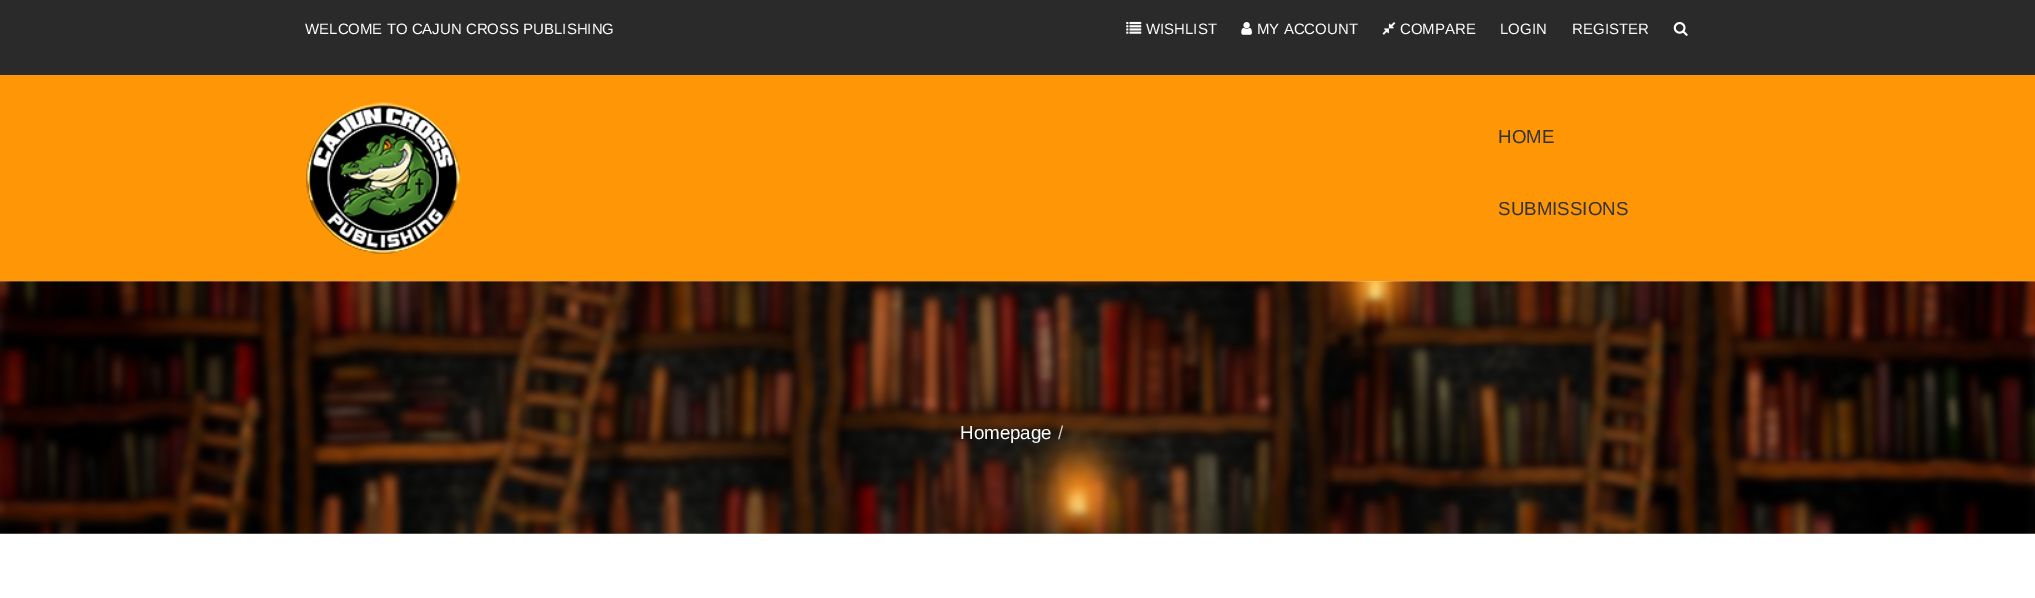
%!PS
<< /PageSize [2035 598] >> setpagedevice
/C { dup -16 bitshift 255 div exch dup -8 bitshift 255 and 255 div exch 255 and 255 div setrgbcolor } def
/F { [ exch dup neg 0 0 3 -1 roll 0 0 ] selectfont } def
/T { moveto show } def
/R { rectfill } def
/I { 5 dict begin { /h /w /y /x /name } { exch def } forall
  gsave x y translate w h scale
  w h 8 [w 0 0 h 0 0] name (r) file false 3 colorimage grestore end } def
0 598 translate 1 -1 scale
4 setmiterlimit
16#FFFFFF C
0 0 2035 598 R
16#FF9606 C
0 75 2035 206 R
16#2A2A2A C
0 0 2035 75 R
/LiberationSans-Regular 15 F
16#FFFFFF C
(WELCOME TO CAJUN CROSS PUBLISHING) 305 34 T
(1.rgb) 1126 21 16 13 I
(WISHLIST) 1146 34 T
(2.rgb) 1241 22 11 13 I
(MY ACCOUNT) 1257 34 T
(3.rgb) 1382 22 14 13 I
(COMPARE) 1400 34 T
(LOGIN) 1500 34 T
(REGISTER) 1572 34 T
(4.rgb) 1673 22 15 14 I
(5.rgb) 306 102 155 152 I
/LiberationSans-Regular 18.75 F
16#333333 C
(HOME) 1498 143 T
(SUBMISSIONS) 1498 215 T
(6.rgb) 0 281 2035 253 I
16#FFFFFF C
(Homepage) 960 439 T
16#CCCCCC C
(/) 1058 439 T
showpage
